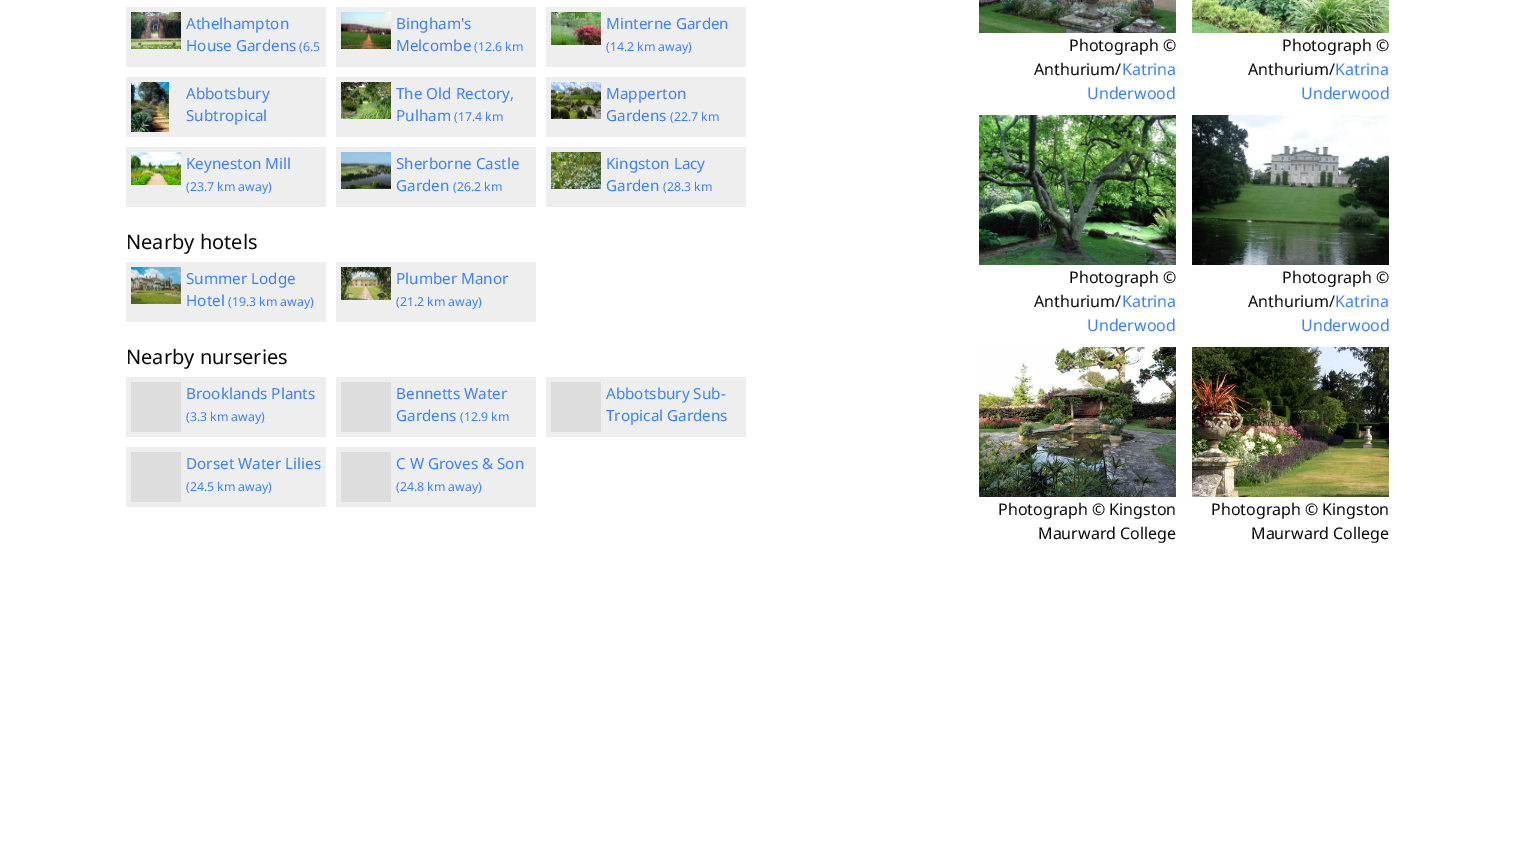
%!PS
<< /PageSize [1515 854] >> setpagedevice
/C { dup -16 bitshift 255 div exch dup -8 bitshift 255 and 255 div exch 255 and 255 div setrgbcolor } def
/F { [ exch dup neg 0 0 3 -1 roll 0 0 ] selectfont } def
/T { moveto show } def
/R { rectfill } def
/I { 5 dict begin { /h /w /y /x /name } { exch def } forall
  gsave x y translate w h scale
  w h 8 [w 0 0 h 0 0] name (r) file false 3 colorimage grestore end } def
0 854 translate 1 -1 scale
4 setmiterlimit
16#FFFFFF C
0 0 1515 854 R
16#EEEEEE C
126 7 200 60 R
(1.rgb) 131 12 50 37 I
/NotoSans-Regular 15.25 F
16#3B82F6 C
(Athelhampton) 186 29 T
(House Gardens) 186 51 T
/NotoSans-Regular 12.25 F
(\(6.5) 299 51 T
16#EEEEEE C
336 7 200 60 R
(2.rgb) 341 12 50 37 I
/NotoSans-Regular 15.25 F
16#3B82F6 C
(Bingham's) 396 29 T
(Melcombe) 396 51 T
/NotoSans-Regular 12.25 F
(\(12.6 km) 474 51 T
16#EEEEEE C
546 7 200 60 R
(3.rgb) 551 12 50 33 I
/NotoSans-Regular 15.25 F
16#3B82F6 C
(Minterne Garden) 606 29 T
/NotoSans-Regular 12.25 F
(\(14.2 km away\)) 606 51 T
16#EEEEEE C
126 77 200 60 R
(4.rgb) 131 82 38 50 I
/NotoSans-Regular 15.25 F
16#3B82F6 C
(Abbotsbury) 186 99 T
(Subtropical) 186 121 T
16#EEEEEE C
336 77 200 60 R
(5.rgb) 341 82 50 37 I
16#3B82F6 C
(The Old Rectory,) 396 99 T
(Pulham) 396 121 T
/NotoSans-Regular 12.25 F
(\(17.4 km) 454 121 T
16#EEEEEE C
546 77 200 60 R
(6.rgb) 551 82 50 37 I
/NotoSans-Regular 15.25 F
16#3B82F6 C
(Mapperton) 606 99 T
(Gardens) 606 121 T
/NotoSans-Regular 12.25 F
(\(22.7 km) 670 121 T
16#EEEEEE C
126 147 200 60 R
(7.rgb) 131 152 50 33 I
/NotoSans-Regular 15.25 F
16#3B82F6 C
(Keyneston Mill) 186 169 T
/NotoSans-Regular 12.25 F
(\(23.7 km away\)) 186 191 T
16#EEEEEE C
336 147 200 60 R
(8.rgb) 341 152 50 37 I
/NotoSans-Regular 15.25 F
16#3B82F6 C
(Sherborne Castle) 396 169 T
(Garden) 396 191 T
/NotoSans-Regular 12.25 F
(\(26.2 km) 453 191 T
16#EEEEEE C
546 147 200 60 R
(9.rgb) 551 152 50 37 I
/NotoSans-Regular 15.25 F
16#3B82F6 C
(Kingston Lacy) 606 169 T
(Garden) 606 191 T
/NotoSans-Regular 12.25 F
(\(28.3 km) 663 191 T
/NotoSans-Regular 20 F
16#0A0A0A C
(Nearby hotels) 126 249 T
16#EEEEEE C
126 262 200 60 R
(10.rgb) 131 267 50 37 I
/NotoSans-Regular 15.25 F
16#3B82F6 C
(Summer Lodge) 186 284 T
(Hotel) 186 306 T
/NotoSans-Regular 12.25 F
(\(19.3 km away\)) 228 306 T
16#EEEEEE C
336 262 200 60 R
(11.rgb) 341 267 50 33 I
/NotoSans-Regular 15.25 F
16#3B82F6 C
(Plumber Manor) 396 284 T
/NotoSans-Regular 12.25 F
(\(21.2 km away\)) 396 306 T
/NotoSans-Regular 20 F
16#0A0A0A C
(Nearby nurseries) 126 364 T
16#EEEEEE C
126 377 200 60 R
16#DDDDDD C
131 382 50 50 R
/NotoSans-Regular 15.25 F
16#3B82F6 C
(Brooklands Plants) 186 399 T
/NotoSans-Regular 12.25 F
(\(3.3 km away\)) 186 421 T
16#EEEEEE C
336 377 200 60 R
16#DDDDDD C
341 382 50 50 R
/NotoSans-Regular 15.25 F
16#3B82F6 C
(Bennetts Water) 396 399 T
(Gardens) 396 421 T
/NotoSans-Regular 12.25 F
(\(12.9 km) 460 421 T
16#EEEEEE C
546 377 200 60 R
16#DDDDDD C
551 382 50 50 R
/NotoSans-Regular 15.25 F
16#3B82F6 C
(Abbotsbury Sub-) 606 399 T
(Tropical Gardens) 606 421 T
16#EEEEEE C
126 447 200 60 R
16#DDDDDD C
131 452 50 50 R
16#3B82F6 C
(Dorset Water Lilies) 186 469 T
/NotoSans-Regular 12.25 F
(\(24.5 km away\)) 186 491 T
16#EEEEEE C
336 447 200 60 R
16#DDDDDD C
341 452 50 50 R
/NotoSans-Regular 15.25 F
16#3B82F6 C
(C W Groves & Son) 396 469 T
/NotoSans-Regular 12.25 F
(\(24.8 km away\)) 396 491 T
(12.rgb) 979 0 197 33 I
/NotoSans-Regular 16 F
16#0A0A0A C
(Photograph ©) 1069 51 T
(Anthurium/) 1034 75 T
16#3B82F6 C
(Katrina) 1122 75 T
(Underwood) 1087 99 T
(13.rgb) 1192 0 197 33 I
16#0A0A0A C
(Photograph ©) 1282 51 T
(Anthurium/) 1248 75 T
16#3B82F6 C
(Katrina) 1335 75 T
(Underwood) 1301 99 T
(14.rgb) 979 115 197 150 I
16#0A0A0A C
(Photograph ©) 1069 283 T
(Anthurium/) 1034 307 T
16#3B82F6 C
(Katrina) 1122 307 T
(Underwood) 1087 331 T
(15.rgb) 1192 115 197 150 I
16#0A0A0A C
(Photograph ©) 1282 283 T
(Anthurium/) 1248 307 T
16#3B82F6 C
(Katrina) 1335 307 T
(Underwood) 1301 331 T
(16.rgb) 979 347 197 150 I
16#0A0A0A C
(Photograph © Kingston) 998 515 T
(Maurward College) 1038 539 T
(17.rgb) 1192 347 197 150 I
(Photograph © Kingston) 1211 515 T
(Maurward College) 1251 539 T
showpage
